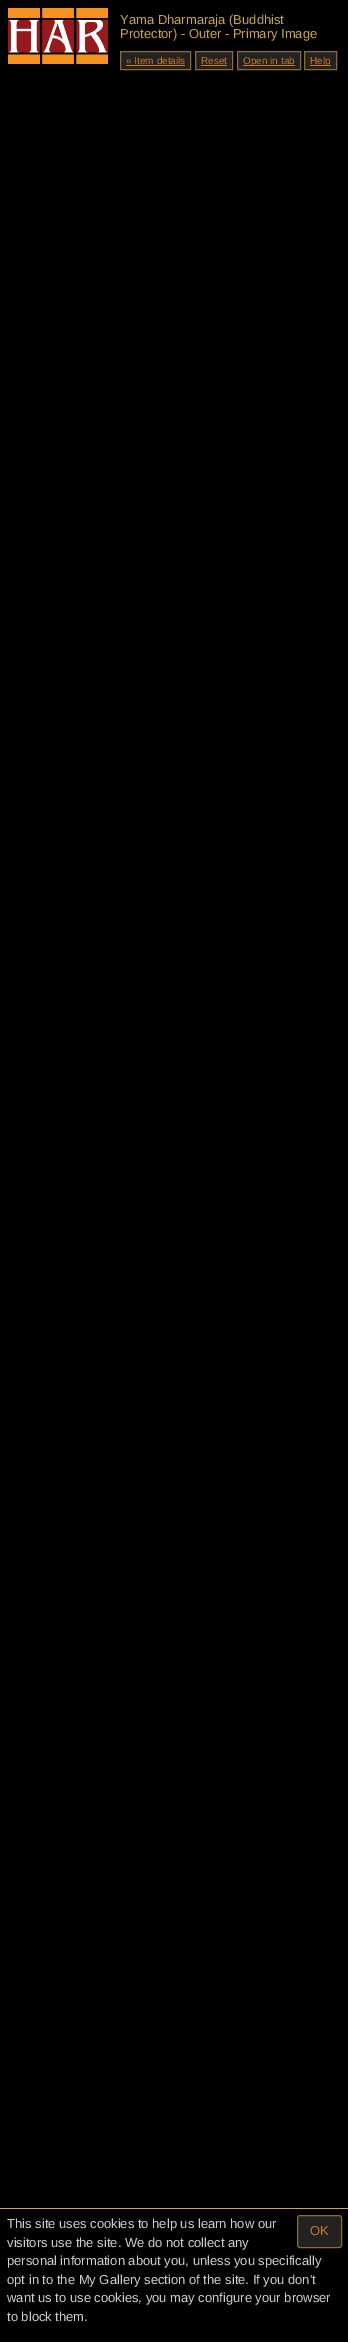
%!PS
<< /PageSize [348 2342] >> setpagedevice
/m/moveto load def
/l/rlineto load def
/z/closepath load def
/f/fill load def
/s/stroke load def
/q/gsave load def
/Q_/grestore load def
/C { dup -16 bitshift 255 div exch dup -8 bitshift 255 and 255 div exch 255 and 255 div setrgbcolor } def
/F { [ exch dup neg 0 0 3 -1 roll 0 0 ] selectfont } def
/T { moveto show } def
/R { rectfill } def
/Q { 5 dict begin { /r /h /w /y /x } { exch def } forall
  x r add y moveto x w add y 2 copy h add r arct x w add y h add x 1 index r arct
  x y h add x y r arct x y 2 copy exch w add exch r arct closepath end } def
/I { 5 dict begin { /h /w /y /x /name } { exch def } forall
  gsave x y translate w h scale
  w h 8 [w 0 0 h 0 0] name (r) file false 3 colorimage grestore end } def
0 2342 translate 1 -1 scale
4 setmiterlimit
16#000000 C
0 0 348 2342 R
(1.rgb) 8 8 100 56 I
/LiberationSans-Regular 13 F
16#CCA351 C
(Yama Dharmaraja \(Buddhist) 120 24 T
(Protector\) - Outer - Primary Image) 120 38 T
16#222222 C
120.5 51.5 m 70 0 l 0 18 l -70 0 l z q f Q_
16#8E6C29 C
s
/LiberationSans-Regular 10 F
16#CC792A C
(« Item details) 126 64 T
126 65 59 1 R
16#222222 C
195.5 51.5 m 37 0 l 0 18 l -37 0 l z q f Q_
16#8E6C29 C
s
16#CC792A C
(Reset) 201 64 T
201 65 26 1 R
16#222222 C
237.5 51.5 m 63 0 l 0 18 l -63 0 l z q f Q_
16#8E6C29 C
s
16#CC792A C
243 65 52 1 R
(Open in tab) 243 64 T
16#222222 C
304.5 51.5 m 32 0 l 0 18 l -32 0 l z q f Q_
16#8E6C29 C
s
16#CC792A C
310 65 21 1 R
(Help) 310 64 T
16#CCA351 C
0 2208 348 1 R
/LiberationSans-Regular 13 F
16#CFCFCF C
(This site uses cookies to help us learn how our) 7 2228 T
(visitors use the site. We do not collect any) 7 2247 T
(personal information about you, unless you specifically) 7 2265 T
(opt in to the My Gallery section of the site. If you don't) 7 2284 T
(want us to use cookies, you may configure your browser) 7 2302 T
(to block them.) 7 2321 T
16#222222 C
297.5 2215.5 44 32 2.5 Q q f Q_
16#8E6C29 C
s
16#CC792A C
(OK) 310 2235 T
showpage
